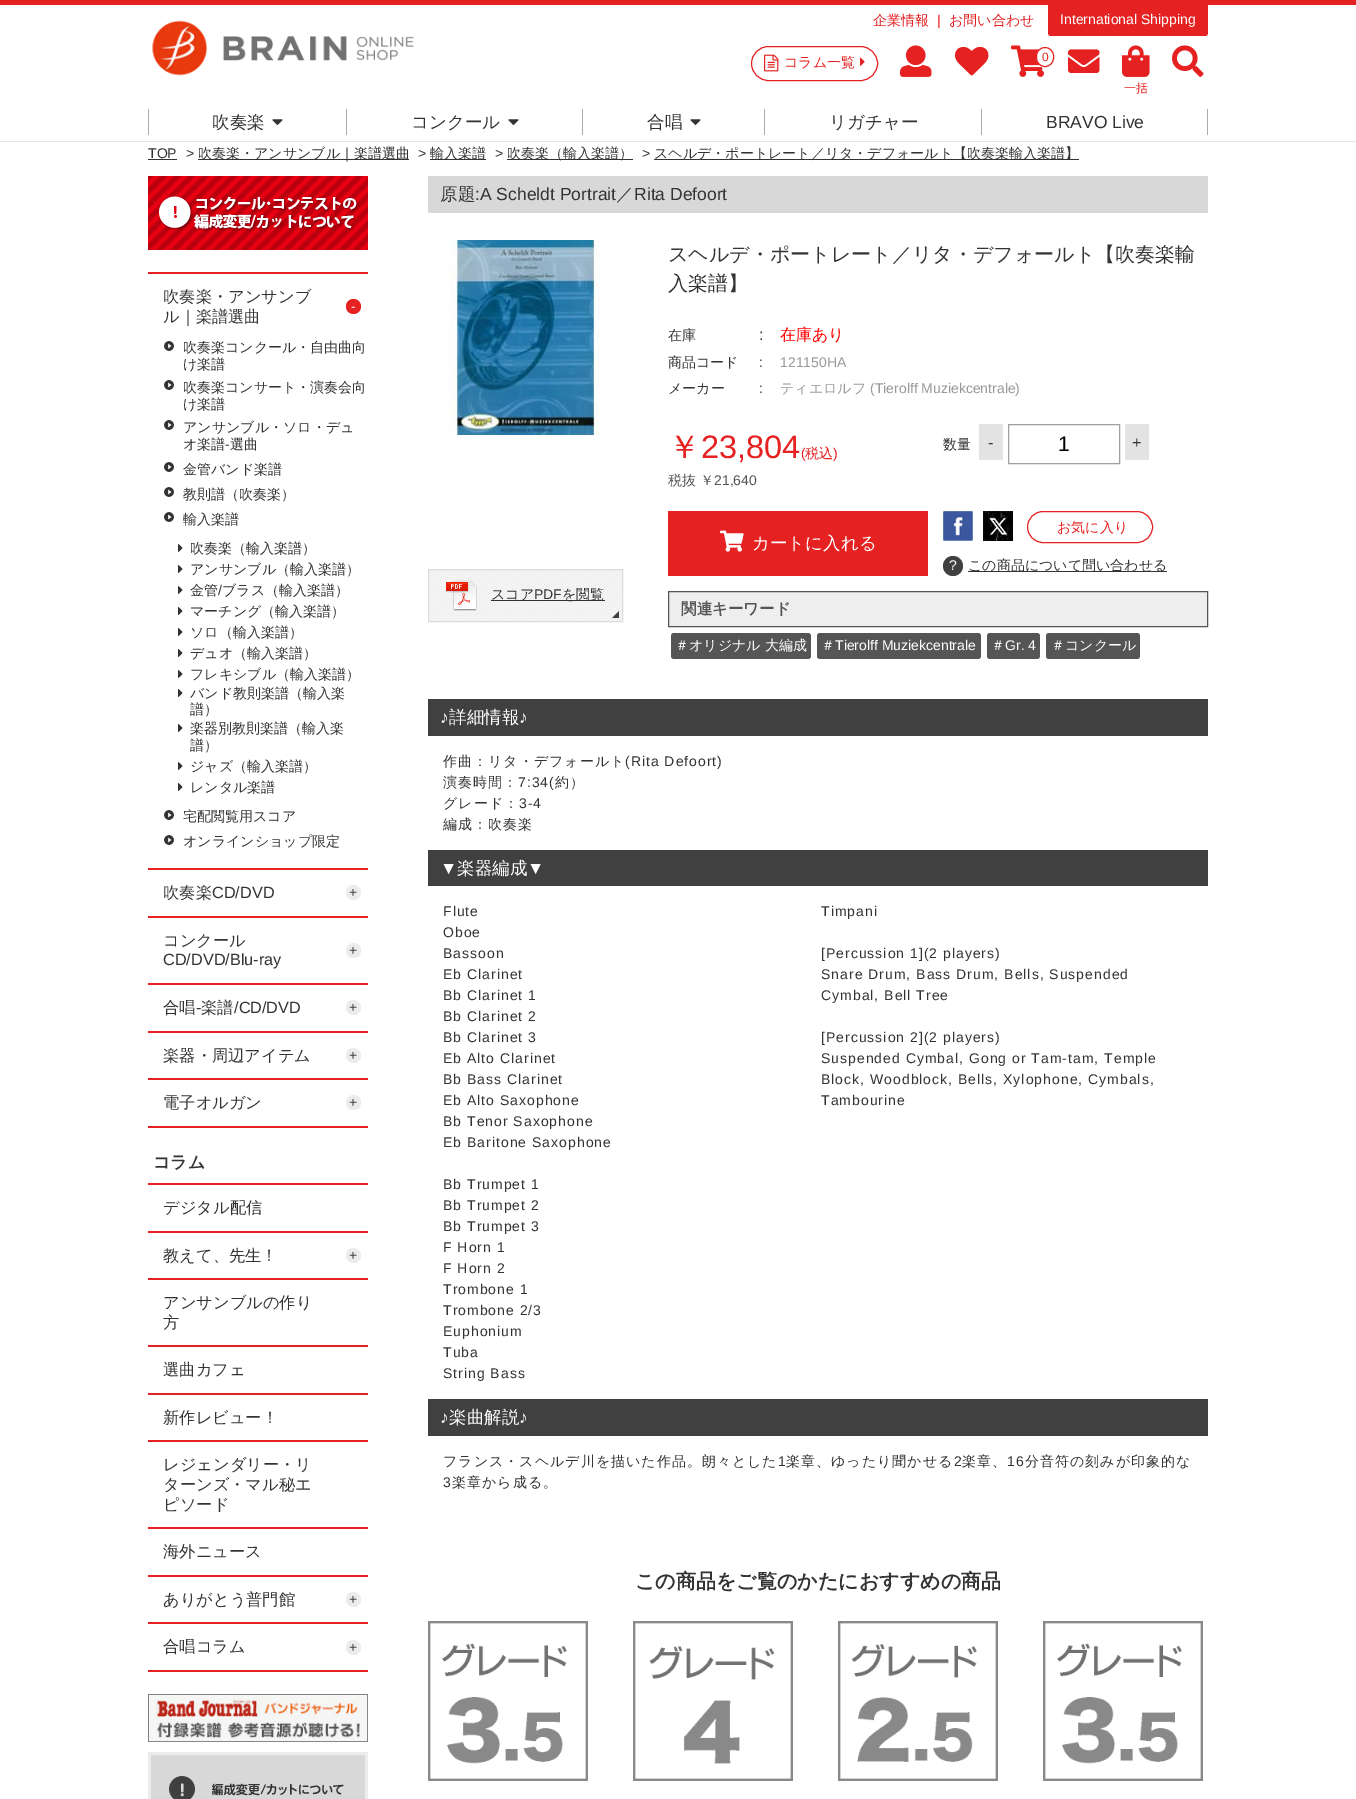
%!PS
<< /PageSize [1356 1799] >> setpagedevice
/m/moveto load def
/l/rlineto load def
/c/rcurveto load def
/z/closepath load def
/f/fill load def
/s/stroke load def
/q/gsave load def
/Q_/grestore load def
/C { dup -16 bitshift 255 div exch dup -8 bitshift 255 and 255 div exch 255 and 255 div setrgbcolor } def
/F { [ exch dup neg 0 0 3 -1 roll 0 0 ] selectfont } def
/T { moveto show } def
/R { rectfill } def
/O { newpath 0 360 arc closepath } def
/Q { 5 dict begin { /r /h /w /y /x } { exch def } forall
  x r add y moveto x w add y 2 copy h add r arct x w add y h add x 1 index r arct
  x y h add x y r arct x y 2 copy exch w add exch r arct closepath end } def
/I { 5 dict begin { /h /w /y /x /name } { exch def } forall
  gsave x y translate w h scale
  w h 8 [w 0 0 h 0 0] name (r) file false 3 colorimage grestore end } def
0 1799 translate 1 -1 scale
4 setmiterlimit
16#FFFFFF C
0 0 1356 1799 R
16#E52121 C
0 0 1356 5 R
(1.rgb) 152 20 262 56 I
/WenQuanYiZenHei-Medium 14 F
(企業情報) 873 25 T
/LiberationSans-Regular 14 F
(|) 937 25 T
/WenQuanYiZenHei-Medium 14 F
(お問い合わせ) 949 25 T
1048 5 m 160 0 l 0 28 l 0 1.5 -1.5 3 -3 3 c -154 0 l -1.5 0 -3 -1.5 -3 -3 c z f
/LiberationSans-Regular 14 F
16#FFFFFF C
(International Shipping) 1060 24 T
16#E52121 C
751.5 46.5 126 34 17 Q s
(2.rgb) 764 54 15 18 I
/WenQuanYiZenHei-Medium 14 F
(コラム一覧) 784 67 T
(3.rgb) 860 57 5 9 I
(4.rgb) 900 45 32 32 I
(5.rgb) 955 46 34 30 I
(6.rgb) 1011 45 33 32 I
16#FFFFFF C
1036.5 47.5 17 19 8.5 Q q f Q_
16#E52121 C
s
/LiberationSans-Regular 12 F
(0) 1042 61 T
(7.rgb) 1068 49 32 24 I
(8.rgb) 1172 45 32 32 I
(9.rgb) 1122 45 28 32 I
/WenQuanYiZenHei-Medium 12 F
(一括) 1124 92 T
16#E6E6E6 C
0 141 1356 1 R
16#AAAAAA C
148 109 1 26 R
/WenQuanYiZenHei-Medium 17.5 F
16#333333 C
(吹奏楽) 212 128 T
(10.rgb) 272 119 11 6 I
16#AAAAAA C
346 109 1 26 R
16#333333 C
(コンクール) 411 128 T
(10.rgb) 508 119 11 6 I
16#AAAAAA C
582 109 1 26 R
16#333333 C
(合唱) 647 128 T
(10.rgb) 690 119 11 6 I
16#AAAAAA C
764 109 1 26 R
16#333333 C
(リガチャー) 829 128 T
16#AAAAAA C
981 109 1 26 R
/LiberationSans-Regular 17.5 F
16#333333 C
(BRAVO Live) 1046 128 T
16#AAAAAA C
1207 109 1 26 R
/LiberationSans-Regular 14 F
16#333333 C
(TOP) 148 158 T
148 159 29 1 R
(>) 186 158 T
198 159 211 1 R
/WenQuanYiZenHei-Medium 14 F
(吹奏楽・アンサンブル｜楽譜選曲) 198 158 T
/LiberationSans-Regular 14 F
(>) 418 158 T
430 159 56 1 R
/WenQuanYiZenHei-Medium 14 F
(輸入楽譜) 430 158 T
/LiberationSans-Regular 14 F
(>) 495 158 T
507 159 126 1 R
/WenQuanYiZenHei-Medium 14 F
(吹奏楽（輸入楽譜）) 507 158 T
/LiberationSans-Regular 14 F
(>) 642 158 T
654 159 425 1 R
/WenQuanYiZenHei-Medium 14 F
(スヘルデ・ポートレート／リタ・デフォールト【吹奏楽輸入楽譜】) 654 158 T
(11.rgb) 148 176 220 74 I
16#E52121 C
148 272 220 2 R
148 868 220 2 R
/WenQuanYiZenHei-Medium 16.25 F
16#333333 C
(吹奏楽・アンサンブ) 163 302 T
(ル｜楽譜選曲) 163 322 T
16#E52121 C
353.5 306.5 7.5 O f
/LiberationSans-Regular 14 F
16#FFFFFF C
(-) 351 311 T
(12.rgb) 164 341 10 10 I
/WenQuanYiZenHei-Medium 14 F
16#333333 C
(吹奏楽コンクール・自由曲向) 183 352 T
(け楽譜) 183 369 T
(12.rgb) 164 380 10 10 I
(吹奏楽コンサート・演奏会向) 183 392 T
(け楽譜) 183 409 T
(12.rgb) 164 420 10 10 I
(アンサンブル・ソロ・デュ) 183 432 T
(オ楽譜) 183 449 T
/LiberationSans-Regular 14 F
(-) 225 449 T
/WenQuanYiZenHei-Medium 14 F
(選曲) 230 449 T
(12.rgb) 164 462 10 10 I
(金管バンド楽譜) 183 474 T
(12.rgb) 164 487 10 10 I
(教則譜（吹奏楽）) 183 499 T
(12.rgb) 164 512 10 10 I
(輸入楽譜) 183 524 T
(13.rgb) 178 544 5 8 I
(吹奏楽（輸入楽譜）) 190 553 T
(13.rgb) 178 565 5 8 I
(アンサンブル（輸入楽譜）) 190 574 T
(13.rgb) 178 586 5 8 I
(金管) 190 595 T
/LiberationSans-Regular 14 F
(/) 218 595 T
/WenQuanYiZenHei-Medium 14 F
(ブラス（輸入楽譜）) 222 595 T
(13.rgb) 178 607 5 8 I
(マーチング（輸入楽譜）) 190 616 T
(13.rgb) 178 628 5 8 I
(ソロ（輸入楽譜）) 190 637 T
(13.rgb) 178 649 5 8 I
(デュオ（輸入楽譜）) 190 658 T
(13.rgb) 178 670 5 8 I
(フレキシブル（輸入楽譜）) 190 679 T
(13.rgb) 178 689 5 8 I
(バンド教則楽譜（輸入楽) 190 698 T
(譜）) 190 714 T
(13.rgb) 178 724 5 8 I
(楽器別教則楽譜（輸入楽) 190 733 T
(譜）) 190 750 T
(13.rgb) 178 762 5 8 I
(ジャズ（輸入楽譜）) 190 771 T
(13.rgb) 178 783 5 8 I
(レンタル楽譜) 190 792 T
(12.rgb) 164 810 10 10 I
(宅配閲覧用スコア) 183 821 T
(12.rgb) 164 835 10 10 I
(オンラインショップ限定) 183 846 T
16#E52121 C
148 916 220 2 R
/WenQuanYiZenHei-Medium 16.25 F
16#333333 C
(吹奏楽) 163 898 T
/LiberationSans-Regular 16.25 F
(CD/DVD) 212 898 T
16#ECECEC C
353.5 892.5 7.5 O f
/LiberationSans-Regular 14 F
16#3F3F3F C
(+) 349 897 T
16#E52121 C
148 983 220 2 R
/WenQuanYiZenHei-Medium 16.25 F
16#333333 C
(コンクール) 163 946 T
/LiberationSans-Regular 16.25 F
(CD/DVD/Blu-ray) 163 965 T
16#ECECEC C
353.5 950.5 7.5 O f
/LiberationSans-Regular 14 F
16#3F3F3F C
(+) 349 955 T
16#E52121 C
148 1031 220 2 R
/WenQuanYiZenHei-Medium 16.25 F
16#333333 C
(合唱) 163 1013 T
/LiberationSans-Regular 16.25 F
(-) 196 1013 T
/WenQuanYiZenHei-Medium 16.25 F
(楽譜) 201 1013 T
/LiberationSans-Regular 16.25 F
(/CD/DVD) 234 1013 T
16#ECECEC C
353.5 1007.5 7.5 O f
/LiberationSans-Regular 14 F
16#3F3F3F C
(+) 349 1012 T
16#E52121 C
148 1078 220 2 R
/WenQuanYiZenHei-Medium 16.25 F
16#333333 C
(楽器・周辺アイテム) 163 1061 T
16#ECECEC C
353.5 1055.5 7.5 O f
/LiberationSans-Regular 14 F
16#3F3F3F C
(+) 349 1060 T
16#E52121 C
148 1126 220 2 R
/WenQuanYiZenHei-Medium 16.25 F
16#333333 C
(電子オルガン) 163 1108 T
16#ECECEC C
353.5 1102.5 7.5 O f
/LiberationSans-Regular 14 F
16#3F3F3F C
(+) 349 1107 T
/WenQuanYiZenHei-Bold 17 F
16#333333 C
(コラム) 153 1168 T
16#E52121 C
148 1183 220 2 R
148 1231 220 2 R
/WenQuanYiZenHei-Medium 16.25 F
16#333333 C
(デジタル配信) 163 1213 T
16#E52121 C
148 1278 220 2 R
16#333333 C
(教えて、先生！) 163 1261 T
16#ECECEC C
353.5 1255.5 7.5 O f
/LiberationSans-Regular 14 F
16#3F3F3F C
(+) 349 1260 T
16#E52121 C
148 1345 220 2 R
/WenQuanYiZenHei-Medium 16.25 F
16#333333 C
(アンサンブルの作り) 163 1308 T
(方) 163 1328 T
16#E52121 C
148 1393 220 2 R
16#333333 C
(選曲カフェ) 163 1375 T
16#E52121 C
148 1440 220 2 R
16#333333 C
(新作レビュー！) 163 1423 T
16#E52121 C
148 1527 220 2 R
16#333333 C
(レジェンダリー・リ) 163 1470 T
(ターンズ・マル秘エ) 163 1490 T
(ピソード) 163 1510 T
16#E52121 C
148 1575 220 2 R
16#333333 C
(海外ニュース) 163 1557 T
16#E52121 C
148 1622 220 2 R
16#333333 C
(ありがとう普門館) 163 1605 T
16#ECECEC C
353.5 1599.5 7.5 O f
/LiberationSans-Regular 14 F
16#3F3F3F C
(+) 349 1604 T
16#E52121 C
148 1670 220 2 R
/WenQuanYiZenHei-Medium 16.25 F
16#333333 C
(合唱コラム) 163 1652 T
16#ECECEC C
353.5 1647.5 7.5 O f
/LiberationSans-Regular 14 F
16#3F3F3F C
(+) 349 1652 T
(14.rgb) 148 1694 220 48 I
(15.rgb) 148 1752 220 47 I
16#D8D8D8 C
428 176 780 37 R
/WenQuanYiZenHei-Medium 17.5 F
16#333333 C
(原題) 440 200 T
/LiberationSans-Regular 17.5 F
(:A Scheldt Portrait) 475 200 T
/WenQuanYiZenHei-Medium 17.5 F
(／) 616 200 T
/LiberationSans-Regular 17.5 F
(Rita Defoort) 634 200 T
(16.rgb) 445 240 155 195 I
(17.rgb) 429 570 193 51 I
16#DCDCDC C
428.5 569.5 194 52 rectstroke
(18.rgb) 446 580 31 31 I
16#333333 C
491 600 114 1 R
/WenQuanYiZenHei-Medium 14 F
(スコア) 491 599 T
/LiberationSans-Regular 14 F
(PDF) 534 599 T
/WenQuanYiZenHei-Medium 14 F
(を閲覧) 562 599 T
16#404040 C
619 618 m -7 0 l 7 -7 l z f
/WenQuanYiZenHei-Medium 20 F
16#333333 C
(スヘルデ・ポートレート／リタ・デフォールト【吹奏楽輸) 668 261 T
(入楽譜】) 668 290 T
/WenQuanYiZenHei-Medium 14 F
(在庫) 668 340 T
/LiberationSans-Regular 16 F
(:) 759 340 T
/WenQuanYiZenHei-Medium 16 F
16#FF0000 C
(在庫あり) 780 340 T
/WenQuanYiZenHei-Medium 14 F
16#333333 C
(商品コード) 668 367 T
/LiberationSans-Regular 14 F
(:) 759 367 T
16#999999 C
(121150HA) 780 367 T
/WenQuanYiZenHei-Medium 14 F
16#333333 C
(メーカー) 668 393 T
/LiberationSans-Regular 14 F
(:) 759 393 T
/WenQuanYiZenHei-Medium 14 F
16#999999 C
(ティエロルフ) 780 393 T
/LiberationSans-Regular 14 F
(\(Tierolff Muziekcentrale\)) 870 393 T
/WenQuanYiZenHei-Medium 32.5 F
16#E52121 C
(￥) 668 458 T
/LiberationSans-Regular 32.5 F
(23,804) 701 458 T
/LiberationSans-Regular 14 F
(\() 801 458 T
/WenQuanYiZenHei-Medium 14 F
(税込) 805 458 T
/LiberationSans-Regular 14 F
(\)) 833 458 T
/WenQuanYiZenHei-Medium 14 F
16#555555 C
(税抜 ￥) 668 485 T
/LiberationSans-Regular 14 F
(21,640) 714 485 T
/WenQuanYiZenHei-Medium 14 F
16#333333 C
(数量) 943 449 T
16#E3E3E3 C
979 424 24 36 R
/LiberationSans-Regular 16.25 F
16#333333 C
(-) 988 448 T
16#9F9F9F C
1008.5 424.5 111 39 rectstroke
/LiberationSans-Regular 21 F
16#000000 C
(1) 1058 451 T
16#E3E3E3 C
1125 424 24 36 R
/LiberationSans-Regular 16.25 F
16#333333 C
(+) 1132 448 T
16#E52121 C
668 511 260 65 R
(19.rgb) 720 530 24 22 I
/WenQuanYiZenHei-Medium 17.5 F
16#FFFFFF C
(カートに入れる) 752 549 T
(20.rgb) 943 511 30 30 I
(21.rgb) 983 511 30 30 I
16#E52121 C
1027.5 511.5 125 31 15.5 Q s
/WenQuanYiZenHei-Medium 14 F
(お気に入り) 1057 532 T
16#404040 C
953 566 10 O f
/LiberationSans-Regular 14 F
16#FFFFFF C
(?) 949 570 T
16#333333 C
968 571 199 1 R
/WenQuanYiZenHei-Medium 14 F
(この商品について問い合わせる) 968 570 T
16#EEEEEE C
668.5 591.5 m 539 0 l 0 35 l -539 0 l z q f Q_
16#555555 C
s
/WenQuanYiZenHei-Bold 15.5 F
(関連キーワード) 681 614 T
671 633 140 26 3 Q f
/WenQuanYiZenHei-Medium 14 F
16#FFFFFF C
(＃オリジナル 大編成) 675 650 T
16#555555 C
817 633 164 26 3 Q f
16#FFFFFF C
(＃) 821 650 T
/LiberationSans-Regular 14 F
(Tierolff Muziekcentrale) 835 650 T
16#555555 C
987 633 53 26 3 Q f
/WenQuanYiZenHei-Medium 14 F
16#FFFFFF C
(＃) 991 650 T
/LiberationSans-Regular 14 F
(Gr. 4) 1005 650 T
16#555555 C
1046 633 94 26 3 Q f
/WenQuanYiZenHei-Medium 14 F
16#FFFFFF C
(＃コンクール) 1051 650 T
16#404040 C
428 699 780 37 R
/LiberationSans-Regular 17.5 F
16#FFFFFF C
(♪) 440 723 T
/WenQuanYiZenHei-Medium 17.5 F
(詳細情報) 449 723 T
/LiberationSans-Regular 17.5 F
(♪) 519 723 T
/WenQuanYiZenHei-Medium 14 F
16#333333 C
443 766 m 1 0 (作曲：リタ・デフォールト) ashow
/LiberationSans-Regular 14 F
625 766 m 1 0 (\(Rita Defoort\)) ashow
/WenQuanYiZenHei-Medium 14 F
443 787 m 1 0 (演奏時間：) ashow
/LiberationSans-Regular 14 F
518 787 m 1 0 (7:34\() ashow
/WenQuanYiZenHei-Medium 14 F
555 787 m 1 0 (約）) ashow
443 808 m 1 0 (グレード：) ashow
/LiberationSans-Regular 14 F
519 808 m 1 0 (3-4) ashow
/WenQuanYiZenHei-Medium 14 F
443 829 m 1 0 (編成：吹奏楽) ashow
16#404040 C
428 850 780 36 R
/LiberationSans-Regular 17.5 F
16#FFFFFF C
(▼) 440 874 T
/WenQuanYiZenHei-Medium 17.5 F
(楽器編成) 457 874 T
/LiberationSans-Regular 17.5 F
(▼) 527 874 T
/LiberationSans-Regular 14 F
16#333333 C
443 916 m 1 0 (Flute) ashow
443 937 m 1 0 (Oboe) ashow
443 958 m 1 0 (Bassoon) ashow
443 979 m 1 0 (Eb Clarinet) ashow
443 1000 m 1 0 (Bb Clarinet 1) ashow
443 1021 m 1 0 (Bb Clarinet 2) ashow
443 1042 m 1 0 (Bb Clarinet 3) ashow
443 1063 m 1 0 (Eb Alto Clarinet) ashow
443 1084 m 1 0 (Bb Bass Clarinet) ashow
443 1105 m 1 0 (Eb Alto Saxophone) ashow
443 1126 m 1 0 (Bb Tenor Saxophone) ashow
443 1147 m 1 0 (Eb Baritone Saxophone) ashow
443 1189 m 1 0 (Bb Trumpet 1) ashow
443 1210 m 1 0 (Bb Trumpet 2) ashow
443 1231 m 1 0 (Bb Trumpet 3) ashow
443 1252 m 1 0 (F Horn 1) ashow
443 1273 m 1 0 (F Horn 2) ashow
443 1294 m 1 0 (Trombone 1) ashow
443 1315 m 1 0 (Trombone 2/3) ashow
443 1336 m 1 0 (Euphonium) ashow
443 1357 m 1 0 (Tuba) ashow
443 1378 m 1 0 (String Bass) ashow
821 916 m 1 0 (Timpani) ashow
821 958 m 1 0 ([Percussion 1]\(2 players\)) ashow
821 979 m 1 0 (Snare Drum, Bass Drum, Bells, Suspended) ashow
821 1000 m 1 0 (Cymbal, Bell Tree) ashow
821 1042 m 1 0 ([Percussion 2]\(2 players\)) ashow
821 1063 m 1 0 (Suspended Cymbal, Gong or Tam-tam, Temple) ashow
821 1084 m 1 0 (Block, Woodblock, Bells, Xylophone, Cymbals,) ashow
821 1105 m 1 0 (Tambourine) ashow
16#404040 C
428 1399 780 37 R
/LiberationSans-Regular 17.5 F
16#FFFFFF C
(♪) 440 1423 T
/WenQuanYiZenHei-Medium 17.5 F
(楽曲解説) 449 1423 T
/LiberationSans-Regular 17.5 F
(♪) 519 1423 T
/WenQuanYiZenHei-Medium 14 F
16#333333 C
443 1466 m 1 0 (フランス・スヘルデ川を描いた作品。朗々とした) ashow
/LiberationSans-Regular 14 F
778 1466 m 1 0 (1) ashow
/WenQuanYiZenHei-Medium 14 F
786 1466 m 1 0 (楽章、ゆったり聞かせる) ashow
/LiberationSans-Regular 14 F
954 1466 m 1 0 (2) ashow
/WenQuanYiZenHei-Medium 14 F
962 1466 m 1 0 (楽章、) ashow
/LiberationSans-Regular 14 F
1007 1466 m 1 0 (16) ashow
/WenQuanYiZenHei-Medium 14 F
1025 1466 m 1 0 (分音符の刻みが印象的な) ashow
/LiberationSans-Regular 14 F
443 1487 m 1 0 (3) ashow
/WenQuanYiZenHei-Medium 14 F
452 1487 m 1 0 (楽章から成る。) ashow
/WenQuanYiZenHei-Bold 20 F
(この商品をご覧のかたにおすすめの商品) 635 1588 T
(22.rgb) 428 1621 160 160 I
(23.rgb) 633 1621 160 160 I
(24.rgb) 838 1621 160 160 I
(22.rgb) 1043 1621 160 160 I
showpage
